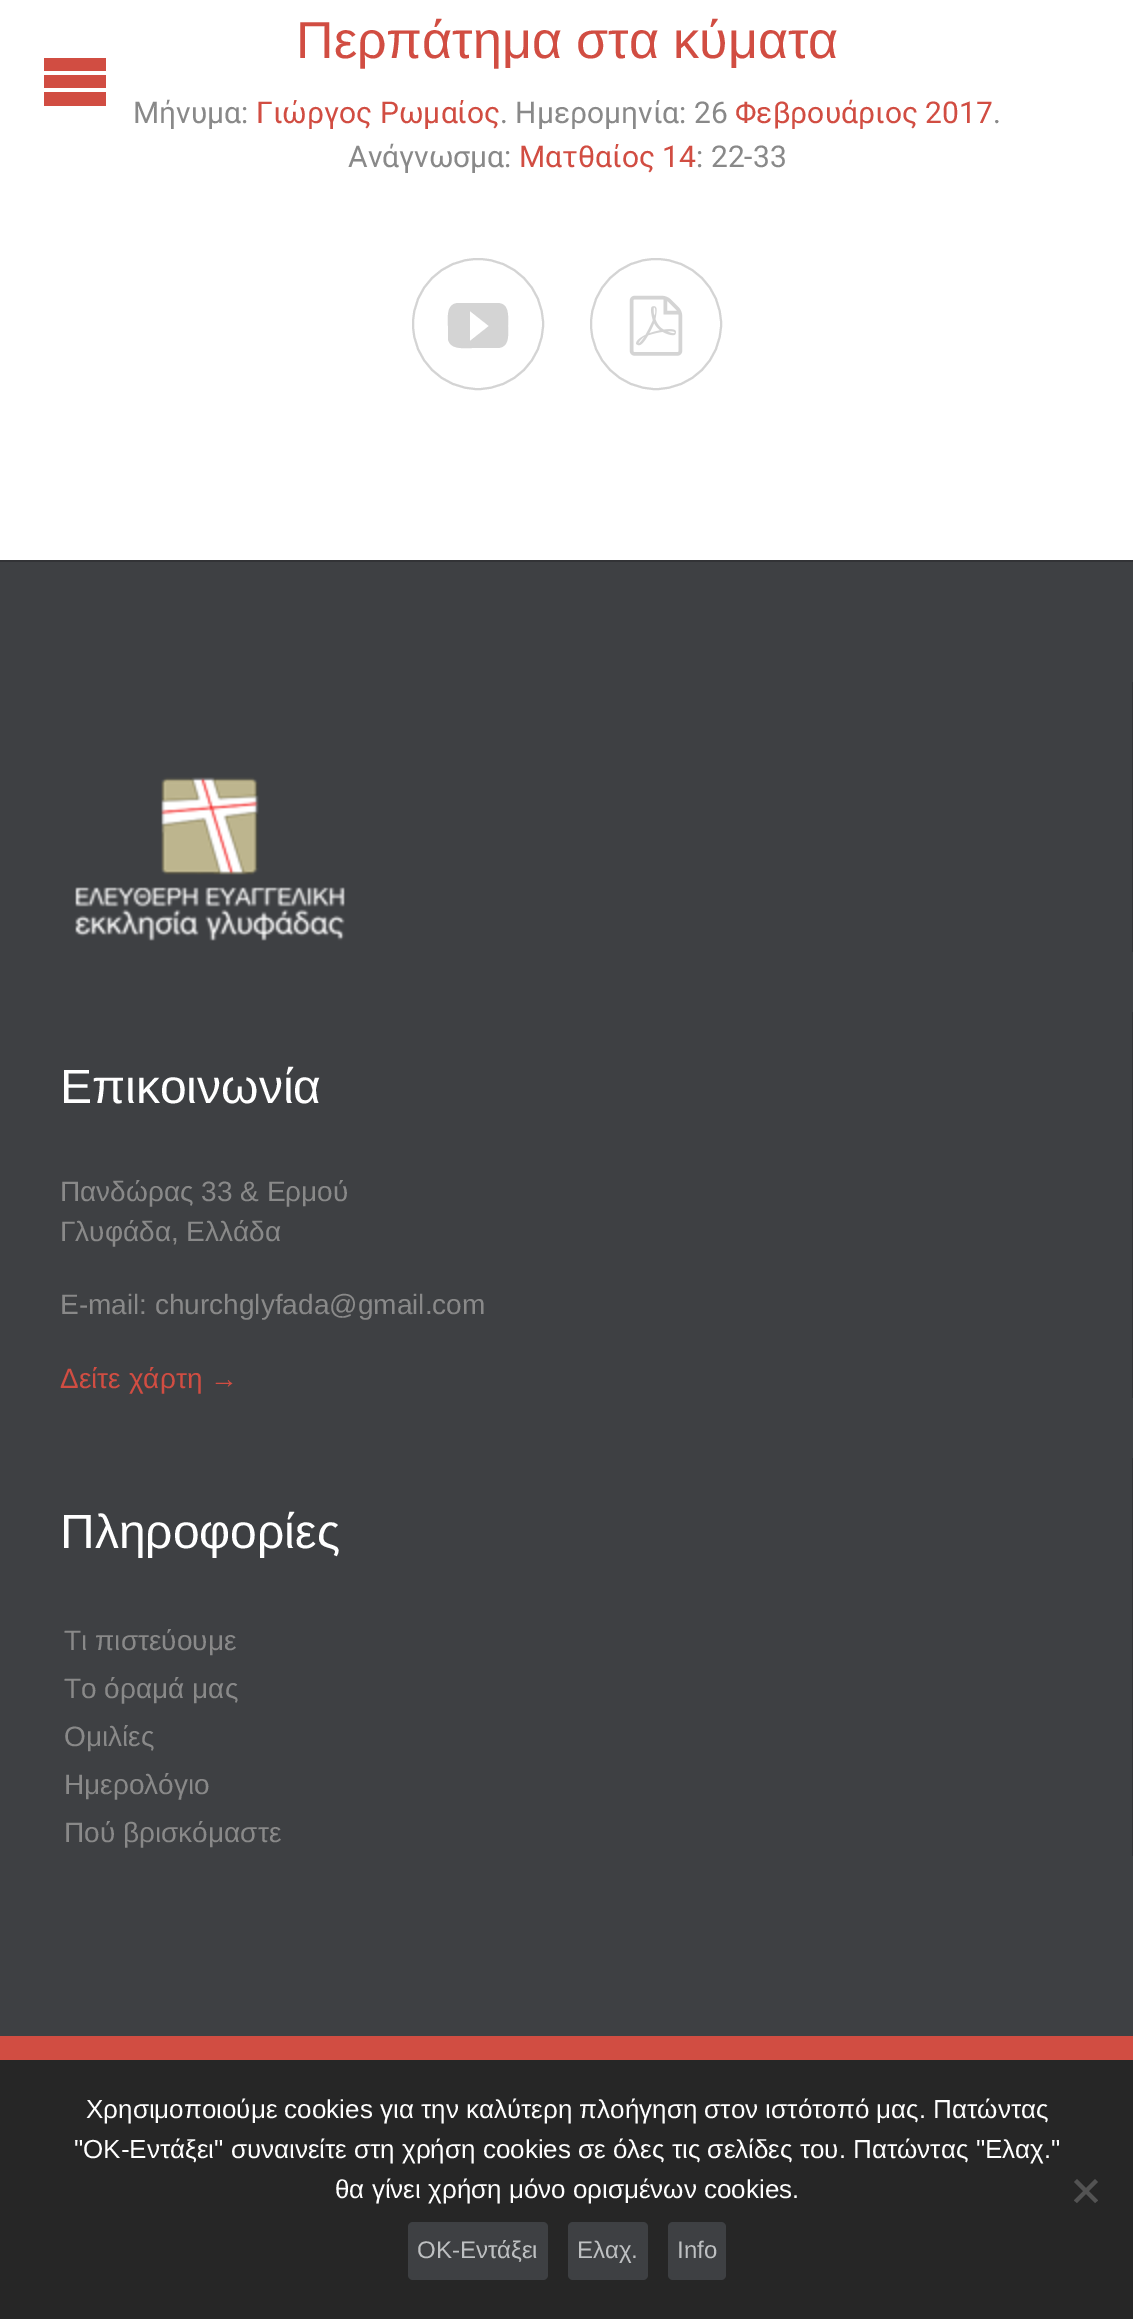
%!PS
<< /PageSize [1133 2319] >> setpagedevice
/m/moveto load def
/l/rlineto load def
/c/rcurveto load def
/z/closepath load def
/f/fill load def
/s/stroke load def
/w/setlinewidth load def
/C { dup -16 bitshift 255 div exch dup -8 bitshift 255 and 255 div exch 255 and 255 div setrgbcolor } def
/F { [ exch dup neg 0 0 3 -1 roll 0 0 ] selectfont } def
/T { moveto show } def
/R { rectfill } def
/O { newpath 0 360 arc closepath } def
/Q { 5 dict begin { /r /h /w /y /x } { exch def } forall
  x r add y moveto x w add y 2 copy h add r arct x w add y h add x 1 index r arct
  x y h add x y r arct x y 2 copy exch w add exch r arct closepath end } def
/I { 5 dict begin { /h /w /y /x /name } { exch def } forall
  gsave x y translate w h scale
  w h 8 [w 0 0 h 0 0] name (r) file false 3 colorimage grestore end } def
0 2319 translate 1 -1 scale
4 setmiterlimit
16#FFFFFF C
0 0 1133 2319 R
/Arimo-Regular 52 F
16#D14D42 C
(Περπάτημα στα κύματα) 296 58 T
/Roboto-Regular 30 F
16#898989 C
(Μήνυμα:) 133 123 T
16#D14D42 C
(Γιώργος Ρωμαίος) 256 123 T
16#898989 C
(. Ημερομηνία: 26) 500 123 T
16#D14D42 C
(Φεβρουάριος 2017) 735 123 T
16#898989 C
(.) 993 123 T
(Ανάγνωσμα:) 348 167 T
16#D14D42 C
(Ματθαίος 14) 519 167 T
16#898989 C
(: 22-33) 696 167 T
16#D4D4D4 C
2 w
478 324 65 O s
497 303 m -39 0 l -12 1 -10 14 -10 23 c 0 13 l 2 11 16 9 24 9 c 26 0 l 12 -1 10 -14 10 -22 c 0 -9 2 -23 -11 -23 c z 470 341 m 0 -30 l 19 15 l z f
656 324 65 O s
(1.rgb) 629 295 54 61 I
16#3E4043 C
0 562 1133 1474 R
16#323336 C
0 560 1133 2 R
1132 682 1 270 R
(2.rgb) 75 777 270 164 I
1132 1012 1 386 R
/Arimo-Regular 48 F
16#FFFFFF C
(Επικοινωνία) 60 1103 T
/Arimo-Regular 28 F
16#898989 C
(Πανδώρας 33 & Ερμού) 60 1201 T
(Γλυφάδα, Ελλάδα) 60 1241 T
(E-mail: churchglyfada@gmail.com) 60 1314 T
16#D14D42 C
(Δείτε χάρτη) 60 1388 T
/LiberationSerif-Regular 28 F
(→) 210 1388 T
16#323336 C
1132 1458 1 398 R
/Arimo-Regular 48 F
16#FFFFFF C
(Πληροφορίες) 60 1548 T
/Arimo-Regular 28 F
16#898989 C
(Τι πιστεύουμε) 64 1650 T
(Το όραμά μας) 64 1698 T
(Ομιλίες) 64 1746 T
(Ημερολόγιο) 64 1794 T
(Πού βρισκόμαστε) 64 1842 T
16#D14D42 C
0 2036 1133 24 R
44 58 m 62 0 l 0 13 l -62 0 l z 44 75 m 62 0 l 0 13 l -62 0 l z 44 92 m 62 0 l 0 14 l -62 0 l z f
16#262626 C
0 2060 1133 259 R
/LiberationSans-Regular 26 F
16#FFFFFF C
(Χρησιμοποιούμε cookies για την καλύτερη πλοήγηση στον ιστότοπό μας. Πατώντας) 86 2118 T
("ΟΚ-Εντάξει" συναινείτε στη χρήση cookies σε όλες τις σελίδες του. Πατώντας "Ελαχ.") 74 2158 T
(θα γίνει χρήση μόνο ορισμένων cookies.) 335 2198 T
16#535353 C
1095 2179 m 3 3 l -21 21 l -3 -2.5 l z f
1074 2182 m 3 -3 l 21 21.5 l -3 2.5 l z f
16#3E4043 C
408 2222 140 58 5 Q f
/Arimo-Regular 24 F
16#BEC0C2 C
(OK-Εντάξει) 417 2258 T
16#3E4043 C
568 2222 80 58 5 Q f
16#BEC0C2 C
(Ελαχ.) 577 2258 T
16#3E4043 C
668 2222 58 58 5 Q f
16#BEC0C2 C
(Info) 677 2258 T
showpage
